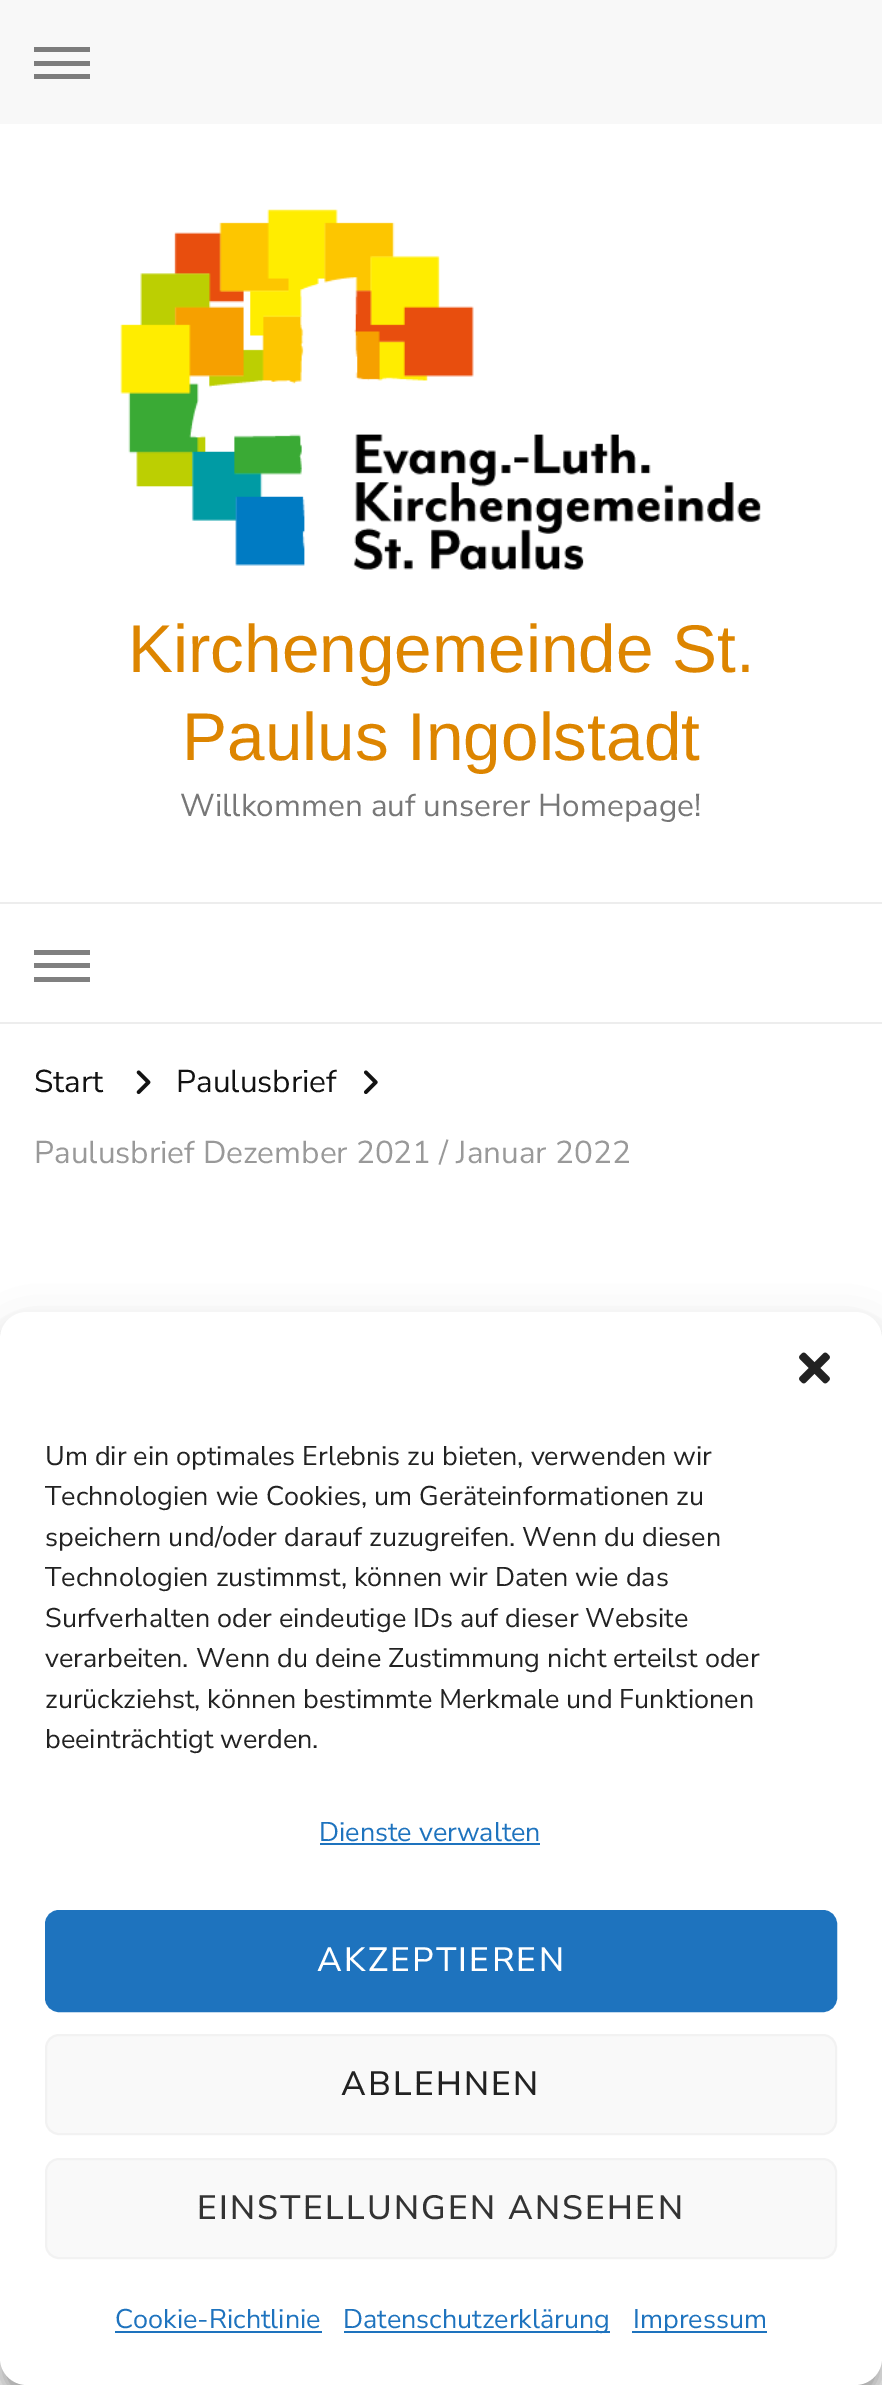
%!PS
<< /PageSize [882 2385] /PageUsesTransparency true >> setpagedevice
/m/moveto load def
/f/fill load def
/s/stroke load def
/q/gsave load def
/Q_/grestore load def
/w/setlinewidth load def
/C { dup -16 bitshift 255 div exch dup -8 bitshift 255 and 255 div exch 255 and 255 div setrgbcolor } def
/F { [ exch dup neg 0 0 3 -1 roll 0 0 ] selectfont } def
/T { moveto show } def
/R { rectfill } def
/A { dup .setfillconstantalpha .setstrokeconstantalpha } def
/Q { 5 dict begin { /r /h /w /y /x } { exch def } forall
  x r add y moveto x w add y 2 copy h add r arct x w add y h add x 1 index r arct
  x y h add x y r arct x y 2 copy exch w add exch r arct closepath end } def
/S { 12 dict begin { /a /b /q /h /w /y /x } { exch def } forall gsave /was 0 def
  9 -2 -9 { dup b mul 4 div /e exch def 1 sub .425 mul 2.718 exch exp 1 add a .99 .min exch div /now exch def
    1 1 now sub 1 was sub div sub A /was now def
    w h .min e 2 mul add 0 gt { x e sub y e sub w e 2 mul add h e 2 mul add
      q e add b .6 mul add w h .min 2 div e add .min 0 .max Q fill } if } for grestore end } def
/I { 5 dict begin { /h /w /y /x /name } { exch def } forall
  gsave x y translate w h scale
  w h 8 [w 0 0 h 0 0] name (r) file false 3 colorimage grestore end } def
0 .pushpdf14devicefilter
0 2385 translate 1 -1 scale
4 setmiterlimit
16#FFFFFF C
0 0 882 2385 R
16#F8F8F8 C
0 0 882 124 R
16#7C7C7C C
34 47 56 5 R
34 61 56 5 R
34 74 56 5 R
(1.rgb) 120 209 641 361 I
/LiberationSans-Regular 67.5 F
16#DD8500 C
(Kirchengemeinde St.) 128 672 T
(Paulus Ingolstadt) 182 760 T
/NunitoSans-Regular 31.5 F
16#777777 C
(Willkommen auf unserer Homepage!) 180 816 T
16#EDEDED C
0 902 882 2 R
0 1022 882 2 R
16#808080 C
34 950 56 5 R
34 963 56 5 R
34 977 56 5 R
16#121212 C
(Start) 34 1092 T
(2.rgb) 136 1070 15 25 I
(Paulusbrief) 176 1092 T
(3.rgb) 364 1070 14 24 I
16#999999 C
(Paulusbrief Dezember 2021 / Januar 2022) 34 1163 T
16#000000 C
0 1325 882 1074 27 7 .23 S
0 1334 882 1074 27 22.5 .19 S
16#FFFFFF C
0 1312 882 1073 27 Q f
(4.rgb) 799 1352 31 32 I
/NunitoSans-Regular 27 F
16#222222 C
(Um dir ein optimales Erlebnis zu bieten, verwenden wir) 45 1465 T
(Technologien wie Cookies, um Geräteinformationen zu) 45 1505 T
(speichern und/oder darauf zuzugreifen. Wenn du diesen) 45 1546 T
(Technologien zustimmst, können wir Daten wie das) 45 1586 T
(Surfverhalten oder eindeutige IDs auf dieser Website) 45 1627 T
(verarbeiten. Wenn du deine Zustimmung nicht erteilst oder) 45 1667 T
(zurückziehst, können bestimmte Merkmale und Funktionen) 45 1708 T
(beeinträchtigt werden.) 45 1748 T
16#1E73BE C
(Dienste verwalten) 319 1841 T
320 1843 220 2 R
46 1911 790 100 13 Q q f Q_
2 w
s
/NunitoSans-Medium 33.75 F
16#FFFFFF C
317 1971 m 2.25 0 (AKZEPTIEREN) ashow
16#F9F9F9 C
46 2035 790 99 13 Q q f Q_
16#F2F2F2 C
s
16#222222 C
341 2095 m 2.25 0 (ABLEHNEN) ashow
16#F9F9F9 C
46 2159 790 99 13 Q q f Q_
16#F2F2F2 C
s
16#333333 C
197 2219 m 2.25 0 (EINSTELLUNGEN ANSEHEN) ashow
/NunitoSans-Regular 27 F
16#1E73BE C
(Cookie-Richtlinie) 115 2328 T
115 2331 207 2 R
344 2331 266 2 R
(Datenschutzerklärung) 343 2328 T
632 2331 135 2 R
(Impressum) 633 2328 T
.poppdf14devicefilter showpage
